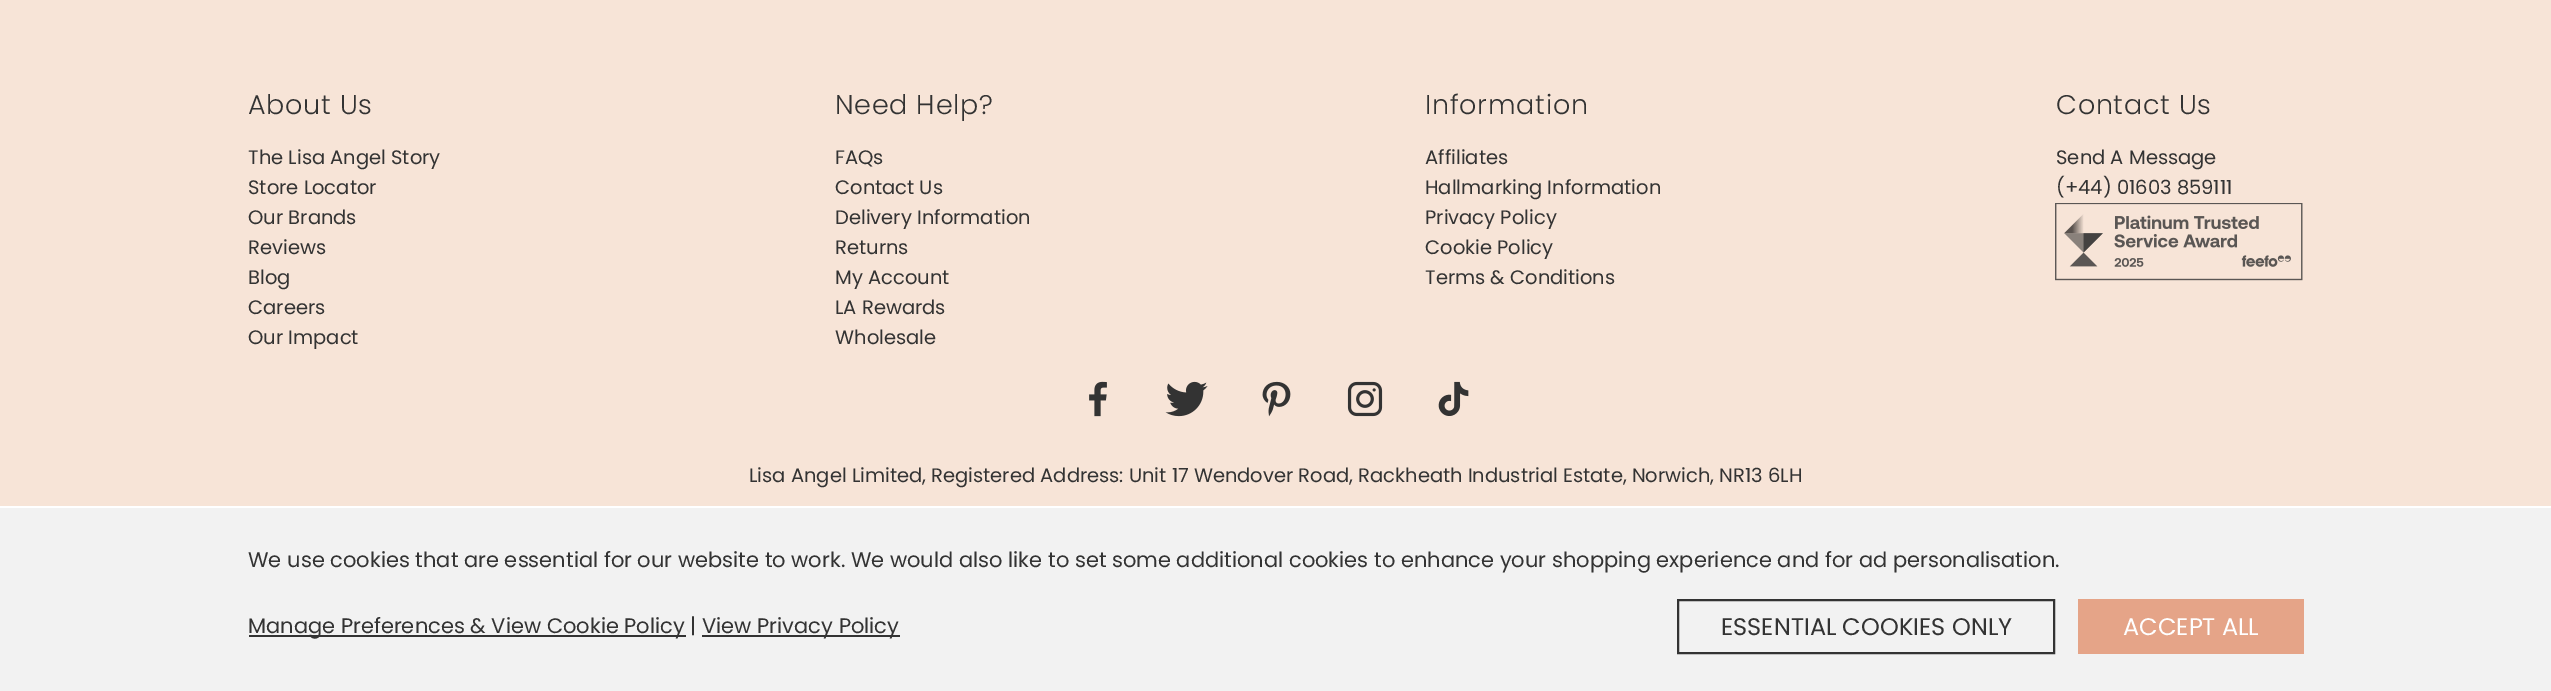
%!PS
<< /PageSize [2551 691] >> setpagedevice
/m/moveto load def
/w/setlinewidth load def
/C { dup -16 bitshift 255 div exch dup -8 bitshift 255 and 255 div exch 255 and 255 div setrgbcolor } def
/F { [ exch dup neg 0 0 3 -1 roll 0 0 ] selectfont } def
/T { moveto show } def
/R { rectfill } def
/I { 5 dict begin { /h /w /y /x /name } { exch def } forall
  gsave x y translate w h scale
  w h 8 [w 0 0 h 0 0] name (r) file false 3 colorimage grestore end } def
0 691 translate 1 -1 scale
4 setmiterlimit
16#F7E4D7 C
0 0 2551 691 R
/Poppins-Light 27 F
16#333333 C
248 114 m .75 0 (About Us) ashow
/Poppins-Regular 19.5 F
(The Lisa Angel Story) 248 164 T
(Store Locator) 248 194 T
(Our Brands) 248 224 T
(Reviews) 248 254 T
(Blog) 248 284 T
(Careers) 248 314 T
(Our Impact) 248 344 T
/Poppins-Light 27 F
835 114 m .75 0 (Need Help?) ashow
/Poppins-Regular 19.5 F
(FAQs) 835 164 T
(Contact Us) 835 194 T
(Delivery Information) 835 224 T
(Returns) 835 254 T
(My Account) 835 284 T
(LA Rewards) 835 314 T
(Wholesale) 835 344 T
/Poppins-Light 27 F
1425 114 m .75 0 (Information) ashow
/Poppins-Regular 19.5 F
(Affiliates) 1425 164 T
(Hallmarking Information) 1425 194 T
(Privacy Policy) 1425 224 T
(Cookie Policy) 1425 254 T
(Terms & Conditions) 1425 284 T
/Poppins-Light 27 F
2056 114 m .75 0 (Contact Us) ashow
/Poppins-Regular 19.5 F
(Send A Message) 2056 164 T
(\(+44\) 01603 859111) 2056 194 T
(1.rgb) 2055 203 248 78 I
(2.rgb) 1089 381 18 36 I
(3.rgb) 1165 381 43 36 I
(4.rgb) 1262 381 29 36 I
(5.rgb) 1347 381 36 36 I
(6.rgb) 1438 381 31 35 I
(Lisa Angel Limited, Registered Address: Unit 17 Wendover Road, Rackheath Industrial Estate, Norwich, NR13 6LH) 749 482 T
16#F2F2F2 C
0 508 2551 183 R
16#FFFFFF C
0 506 2551 2 R
/Poppins-Regular 21 F
16#333333 C
(We use cookies that are essential for our website to work. We would also like to set some additional cookies to enhance your shopping experience and for ad personalisation.) 248 567 T
249 635 437 2 R
(Manage Preferences & View Cookie Policy |) 248 633 T
702 635 198 2 R
(View Privacy Policy) 702 633 T
2 w
1678 600 376 53 rectstroke
/Poppins-Regular 24 F
(ESSENTIAL COOKIES ONLY) 1721 635 T
16#E5A488 C
2078 599 226 55 R
16#FFFFFF C
(ACCEPT ALL) 2123 635 T
showpage
